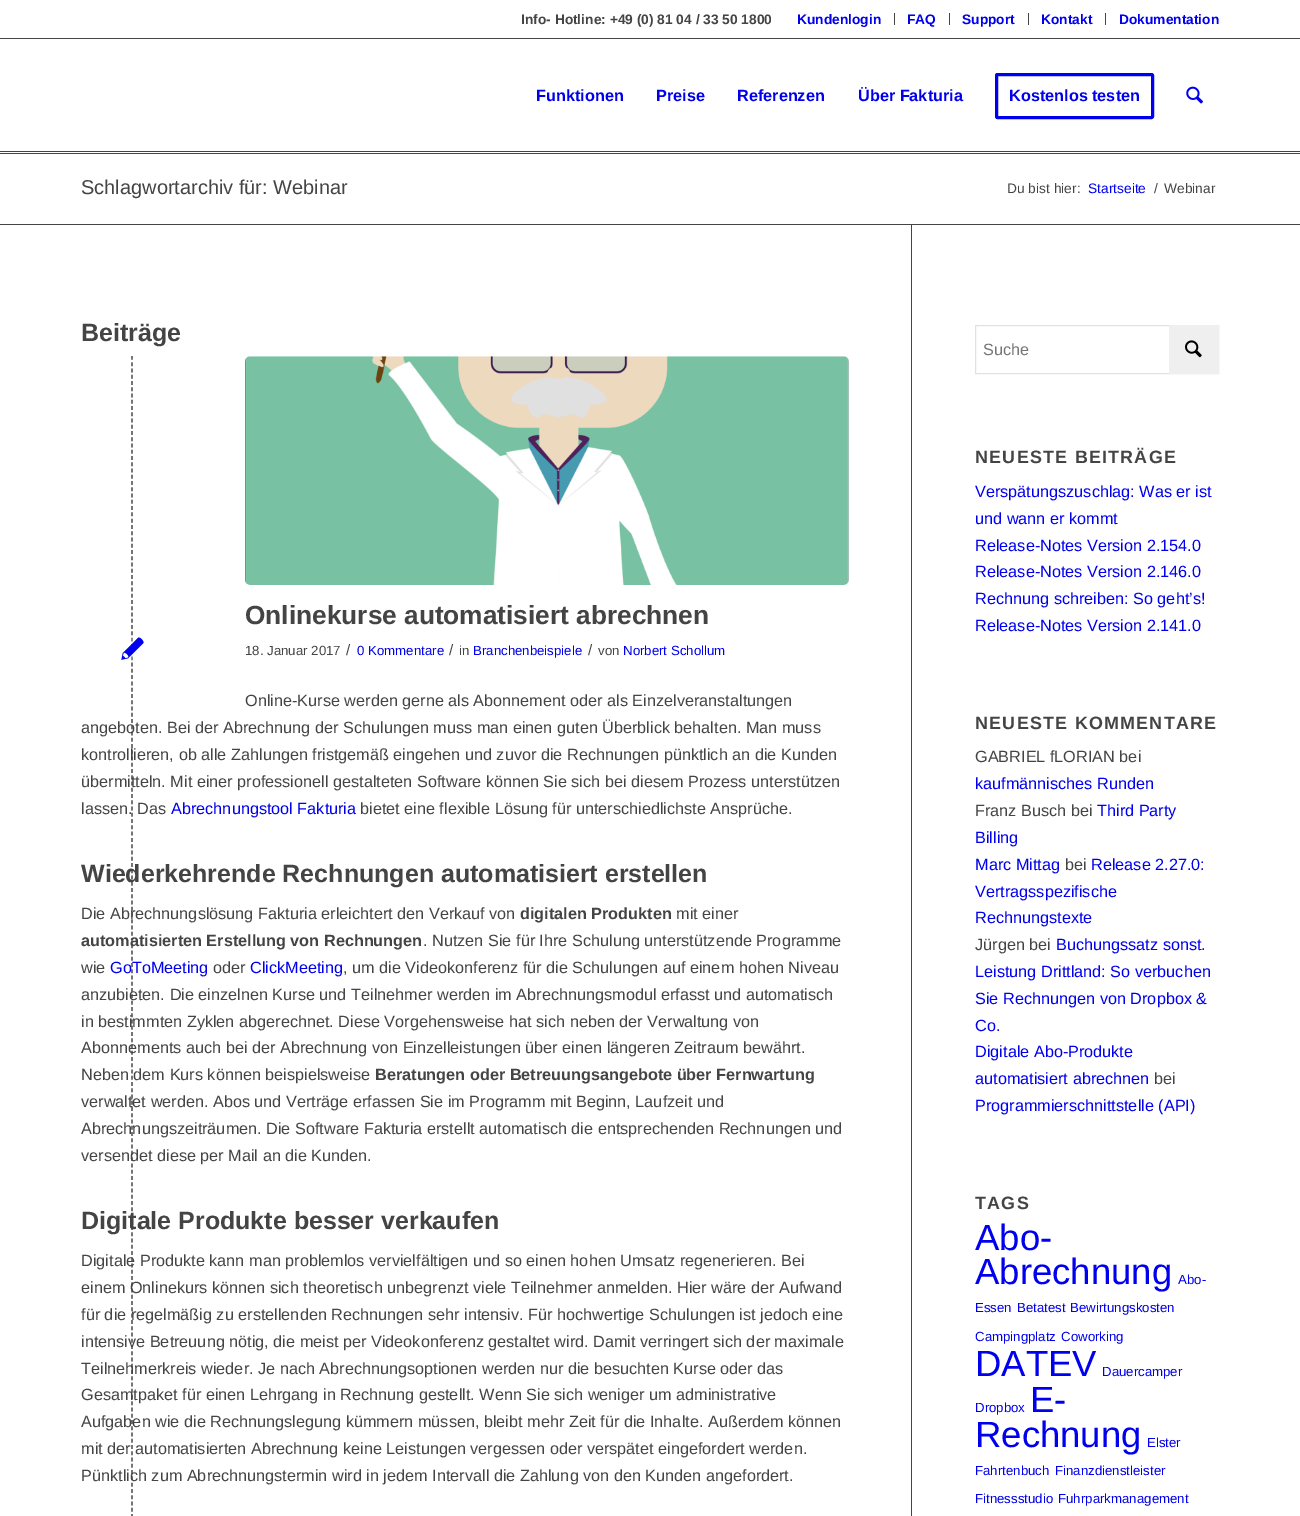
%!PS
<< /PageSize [1300 1516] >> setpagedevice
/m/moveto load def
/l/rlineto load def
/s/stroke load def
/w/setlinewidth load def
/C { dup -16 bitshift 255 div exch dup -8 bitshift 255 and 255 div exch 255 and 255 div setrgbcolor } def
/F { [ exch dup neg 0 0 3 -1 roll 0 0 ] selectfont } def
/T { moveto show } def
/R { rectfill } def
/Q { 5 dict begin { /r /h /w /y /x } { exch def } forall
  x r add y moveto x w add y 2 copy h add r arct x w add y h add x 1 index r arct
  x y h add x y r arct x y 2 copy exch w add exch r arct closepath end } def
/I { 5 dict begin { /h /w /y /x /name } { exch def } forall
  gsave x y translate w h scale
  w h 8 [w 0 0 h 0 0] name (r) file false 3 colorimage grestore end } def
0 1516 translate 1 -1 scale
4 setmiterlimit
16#FFFFFF C
0 0 1300 1516 R
/LiberationSans-Bold 13.75 F
16#444444 C
(Info- Hotline: +49 \(0\) 81 04 / 33 50 1800) 521 24 T
894 13 1 12 R
16#0000EE C
(Kundenlogin) 797 24 T
16#444444 C
949 13 1 12 R
16#0000EE C
(FAQ) 907 24 T
16#444444 C
1028 13 1 12 R
16#0000EE C
(Support) 962 24 T
16#444444 C
1105 13 1 12 R
16#0000EE C
(Kontakt) 1041 24 T
(Dokumentation) 1119 24 T
16#444444 C
0 38 1300 1 R
0 153 1300 1 R
/LiberationSans-Bold 16.25 F
16#0000EE C
(Funktionen) 536 101 T
(Preise) 656 101 T
(Referenzen) 737 101 T
(Über Fakturia) 858 101 T
3 w
996.5 74.5 156 43 1 Q s
(Kostenlos testen) 1009 101 T
(1.rgb) 1186 86 17 18 I
16#444444 C
0 151 1300 1 R
/LiberationSans-Regular 20 F
(Schlagwortarchiv für: Webinar) 81 194 T
/LiberationSans-Regular 13.75 F
(Du bist hier:) 1007 193 T
16#0000EE C
(Startseite) 1088 193 T
16#444444 C
(/) 1154 193 T
(Webinar) 1164 193 T
0 224 1300 1 R
911 225 1 1291 R
/LiberationSans-Bold 25 F
(Beiträge) 81 341 T
/LiberationSans-Regular 16.25 F
16#0000EE C
(GoToMeeting) 110 973 T
16#444444 C
1.2 w
[3.75 2.51] 0 setdash
132 356 m 0 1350 l s
(2.rgb) 245 356 604 229 I
/LiberationSans-Bold 26.25 F
(Onlinekurse automatisiert abrechnen) 245 624 T
/LiberationSans-Regular 13.25 F
(18. Januar 2017) 245 655 T
/LiberationSans-Regular 15 F
(/) 346 655 T
/LiberationSans-Regular 13.25 F
16#0000EE C
(0 Kommentare) 357 655 T
/LiberationSans-Regular 15 F
16#444444 C
(/) 449 655 T
/LiberationSans-Regular 13.25 F
(in) 459 655 T
16#0000EE C
(Branchenbeispiele) 473 655 T
/LiberationSans-Regular 15 F
16#444444 C
(/) 588 655 T
/LiberationSans-Regular 13.25 F
(von) 598 655 T
16#0000EE C
(Norbert Schollum) 623 655 T
/LiberationSans-Regular 16.25 F
16#444444 C
(Online-Kurse werden gerne als Abonnement oder als Einzelveranstaltungen) 245 706 T
(angeboten. Bei der Abrechnung der Schulungen muss man einen guten Überblick behalten. Man muss) 81 733 T
(kontrollieren, ob alle Zahlungen fristgemäß eingehen und zuvor die Rechnungen pünktlich an die Kunden) 81 760 T
(übermitteln. Mit einer professionell gestalteten Software können Sie sich bei diesem Prozess unterstützen) 81 787 T
(lassen. Das) 81 814 T
16#0000EE C
(Abrechnungstool Fakturia) 171 814 T
16#444444 C
(bietet eine flexible Lösung für unterschiedlichste Ansprüche.) 360 814 T
/LiberationSans-Bold 25 F
(Wiederkehrende Rechnungen automatisiert erstellen) 81 882 T
/LiberationSans-Regular 16.25 F
(Die Abrechnungslösung Fakturia erleichtert den Verkauf von) 81 919 T
/LiberationSans-Bold 16.25 F
(digitalen Produkten) 520 919 T
/LiberationSans-Regular 16.25 F
(mit einer) 676 919 T
/LiberationSans-Bold 16.25 F
(automatisierten Erstellung von Rechnungen) 81 946 T
/LiberationSans-Regular 16.25 F
(. Nutzen Sie für Ihre Schulung unterstützende Programme) 423 946 T
(wie) 81 973 T
(oder) 213 973 T
16#0000EE C
(ClickMeeting) 250 973 T
16#444444 C
(, um die Videokonferenz für die Schulungen auf einem hohen Niveau) 343 973 T
(anzubieten. Die einzelnen Kurse und Teilnehmer werden im Abrechnungsmodul erfasst und automatisch) 81 1000 T
(in bestimmten Zyklen abgerechnet. Diese Vorgehensweise hat sich neben der Verwaltung von) 81 1027 T
(Abonnements auch bei der Abrechnung von Einzelleistungen über einen längeren Zeitraum bewährt.) 81 1053 T
(Neben dem Kurs können beispielsweise) 81 1080 T
/LiberationSans-Bold 16.25 F
(Beratungen oder Betreuungsangebote über Fernwartung) 375 1080 T
/LiberationSans-Regular 16.25 F
(verwaltet werden. Abos und Verträge erfassen Sie im Programm mit Beginn, Laufzeit und) 81 1107 T
(Abrechnungszeiträumen. Die Software Fakturia erstellt automatisch die entsprechenden Rechnungen und) 81 1134 T
(versendet diese per Mail an die Kunden.) 81 1161 T
/LiberationSans-Bold 25 F
(Digitale Produkte besser verkaufen) 81 1229 T
/LiberationSans-Regular 16.25 F
(Digitale Produkte kann man problemlos vervielfältigen und so einen hohen Umsatz regenerieren. Bei) 81 1266 T
(einem Onlinekurs können sich theoretisch unbegrenzt viele Teilnehmer anmelden. Hier wäre der Aufwand) 81 1293 T
(für die regelmäßig zu erstellenden Rechnungen sehr intensiv. Für hochwertige Schulungen ist jedoch eine) 81 1320 T
(intensive Betreuung nötig, die meist per Videokonferenz gestaltet wird. Damit verringert sich der maximale) 81 1347 T
(Teilnehmerkreis wieder. Je nach Abrechnungsoptionen werden nur die besuchten Kurse oder das) 81 1374 T
(Gesamtpaket für einen Lehrgang in Rechnung gestellt. Wenn Sie sich weniger um administrative) 81 1400 T
(Aufgaben wie die Rechnungslegung kümmern müssen, bleibt mehr Zeit für die Inhalte. Außerdem können) 81 1427 T
(mit der automatisierten Abrechnung keine Leistungen vergessen oder verspätet eingefordert werden.) 81 1454 T
(Pünktlich zum Abrechnungstermin wird in jedem Intervall die Zahlung von den Kunden angefordert.) 81 1481 T
(3.rgb) 121 637 23 23 I
16#E1E1E1 C
1 w
[] 0 setdash
975.5 325.5 243 48 rectstroke
16#757575 C
(Suche) 983 355 T
16#EFEFEF C
1169 325 50 49 R
(4.rgb) 1185 340 17 18 I
/LiberationSans-Bold 17.9 F
16#444444 C
975 463 m 1.25 0 (NEUESTE BEITRÄGE) ashow
/LiberationSans-Regular 16.25 F
16#0000EE C
(Verspätungszuschlag: Was er ist) 975 497 T
(und wann er kommt) 975 524 T
(Release-Notes Version 2.154.0) 975 551 T
(Release-Notes Version 2.146.0) 975 577 T
(Rechnung schreiben: So geht’s!) 975 604 T
(Release-Notes Version 2.141.0) 975 631 T
/LiberationSans-Bold 17.9 F
16#444444 C
975 729 m 1.25 0 (NEUESTE KOMMENTARE) ashow
/LiberationSans-Regular 16.25 F
(GABRIEL fLORIAN bei) 975 762 T
16#0000EE C
(kaufmännisches Runden) 975 789 T
16#444444 C
(Franz Busch bei) 975 816 T
16#0000EE C
(Third Party) 1097 816 T
(Billing) 975 843 T
(Marc Mittag) 975 870 T
16#444444 C
(bei) 1065 870 T
16#0000EE C
(Release 2.27.0:) 1091 870 T
(Vertragsspezifische) 975 897 T
(Rechnungstexte) 975 923 T
16#444444 C
(Jürgen bei) 975 950 T
16#0000EE C
(Buchungssatz sonst.) 1056 950 T
(Leistung Drittland: So verbuchen) 975 977 T
(Sie Rechnungen von Dropbox &) 975 1004 T
(Co.) 975 1031 T
(Digitale Abo-Produkte) 975 1057 T
(automatisiert abrechnen) 975 1084 T
16#444444 C
(bei) 1154 1084 T
16#0000EE C
(Programmierschnittstelle \(API\)) 975 1111 T
/LiberationSans-Bold 17.9 F
16#444444 C
975 1209 m 1.25 0 (TAGS) ashow
/LiberationSans-Regular 36.5 F
16#0000EE C
(Abo-) 975 1250 T
(Abrechnung) 975 1284 T
/LiberationSans-Regular 13.25 F
(Abo-) 1178 1284 T
(Essen) 975 1312 T
(Betatest) 1017 1312 T
(Bewirtungskosten) 1070 1312 T
(Campingplatz) 975 1341 T
(Coworking) 1061 1341 T
/LiberationSans-Regular 36.5 F
(DATEV) 975 1376 T
/LiberationSans-Regular 13.25 F
(Dauercamper) 1102 1376 T
(Dropbox) 975 1412 T
/LiberationSans-Regular 36.5 F
(E-) 1030 1412 T
(Rechnung) 975 1447 T
/LiberationSans-Regular 13.25 F
(Elster) 1147 1447 T
(Fahrtenbuch) 975 1475 T
(Finanzdienstleister) 1055 1475 T
(Fitnessstudio) 975 1503 T
(Fuhrparkmanagement) 1058 1503 T
showpage
